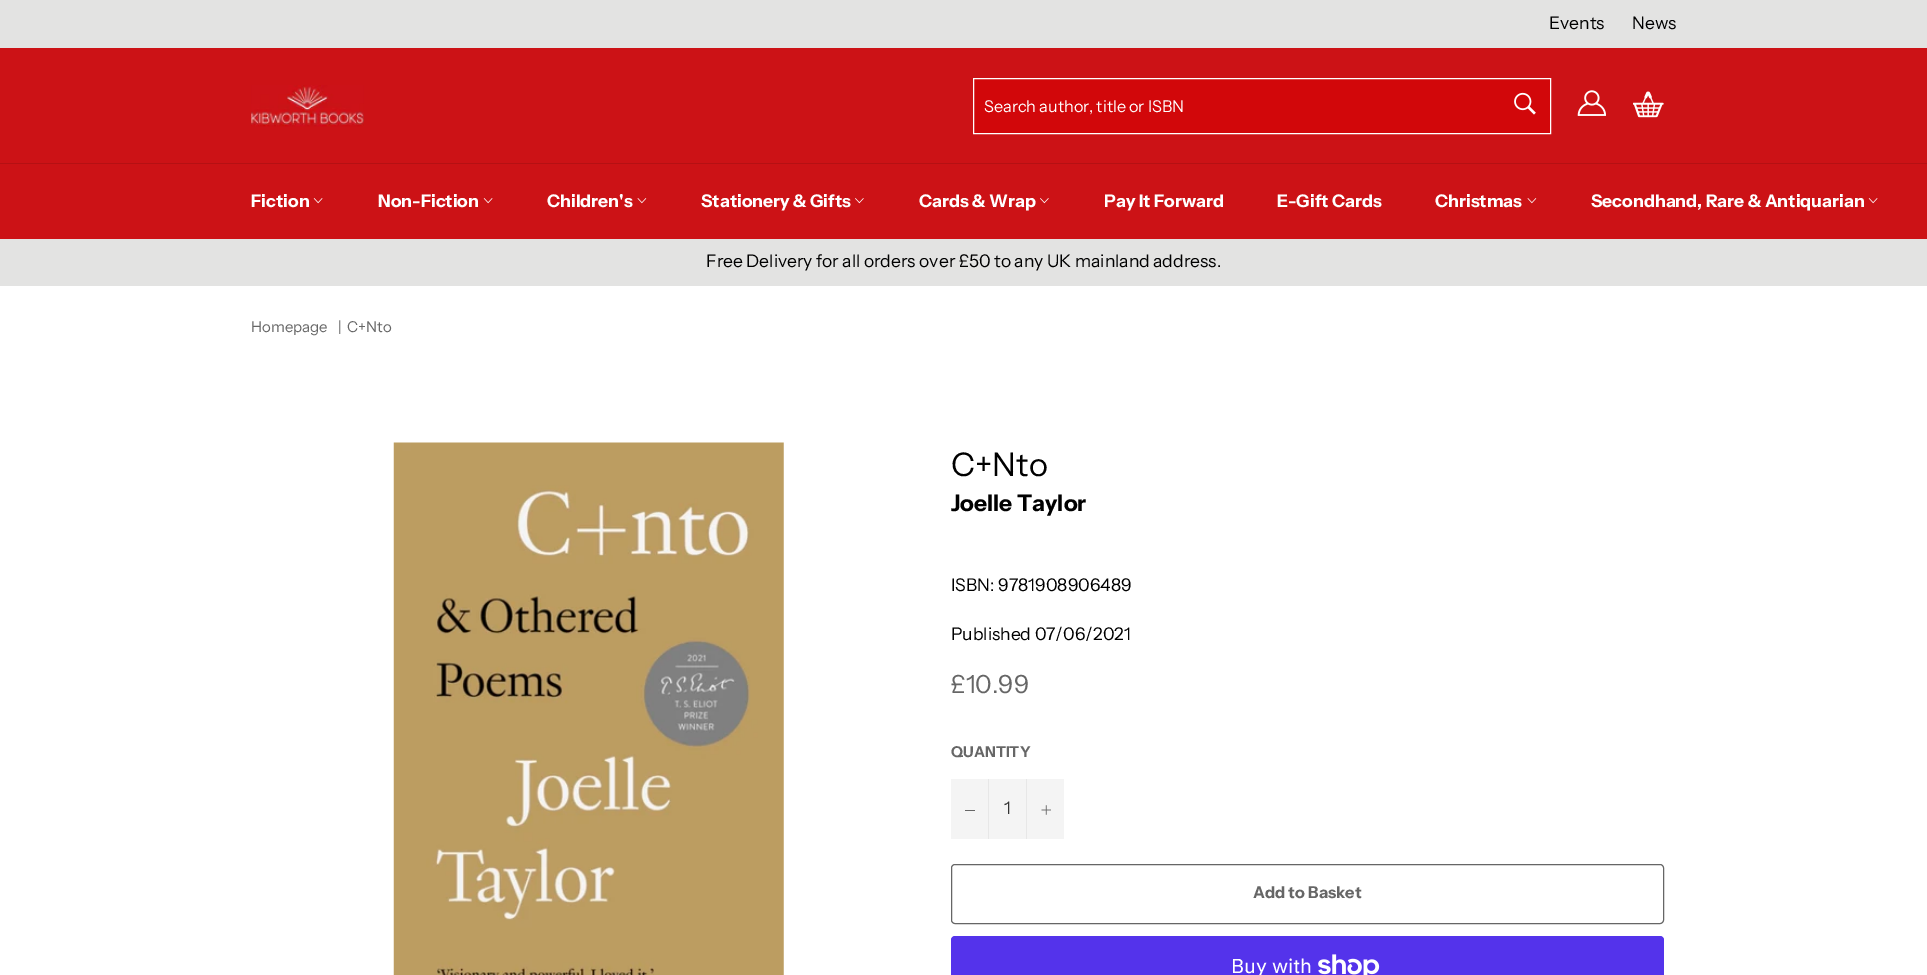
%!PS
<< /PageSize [1927 975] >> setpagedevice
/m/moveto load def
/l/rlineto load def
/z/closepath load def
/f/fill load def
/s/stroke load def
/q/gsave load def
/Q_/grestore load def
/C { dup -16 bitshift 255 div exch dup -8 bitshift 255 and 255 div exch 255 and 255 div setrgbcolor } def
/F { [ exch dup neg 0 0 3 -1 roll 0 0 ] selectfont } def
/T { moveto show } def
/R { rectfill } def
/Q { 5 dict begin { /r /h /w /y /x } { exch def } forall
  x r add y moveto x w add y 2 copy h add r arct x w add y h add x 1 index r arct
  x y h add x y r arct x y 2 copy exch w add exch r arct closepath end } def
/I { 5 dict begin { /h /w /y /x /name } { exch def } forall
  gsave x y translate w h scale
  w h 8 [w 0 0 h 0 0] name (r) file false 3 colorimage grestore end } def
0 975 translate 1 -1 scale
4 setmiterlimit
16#FFFFFF C
0 0 1927 975 R
16#E3E3E2 C
0 0 1927 48 R
/InstrumentSans-Regular 17.5 F
16#000000 C
(Events) 1549 29 T
(News) 1632 29 T
16#CC1216 C
0 48 1927 115 R
(1.rgb) 251 85 113 42 I
16#D2070A C
973.5 78.5 m 577 0 l 0 55 l -577 0 l z q f Q_
16#FFFFFF C
s
/InstrumentSans-Regular 16.25 F
(Search author, title or ISBN) 984 112 T
(2.rgb) 1514 92 22 23 I
(3.rgb) 1577 90 29 26 I
(4.rgb) 1633 91 31 27 I
16#CC1216 C
0 164 1927 75 R
16#B51013 C
0 163 1927 1 R
/InstrumentSans-Bold 17.5 F
16#FFFFFF C
(Fiction) 251 207 T
(5.rgb) 313 198 10 6 I
(Non-Fiction) 378 207 T
(5.rgb) 483 198 10 6 I
(Children's) 547 207 T
(6.rgb) 637 198 10 6 I
(Stationery & Gifts) 701 207 T
(7.rgb) 855 198 9 6 I
(Cards & Wrap) 919 207 T
(7.rgb) 1040 198 9 6 I
(Pay It Forward) 1104 207 T
(E-Gift Cards) 1277 207 T
(Christmas) 1435 207 T
(6.rgb) 1527 198 10 6 I
(Secondhand, Rare & Antiquarian) 1591 207 T
(5.rgb) 1868 198 10 6 I
16#E3E3E2 C
0 239 1927 47 R
/InstrumentSans-Regular 17.5 F
16#000000 C
(Free Delivery for all orders over £50 to any UK mainland address.) 706 267 T
/InstrumentSans-Regular 15 F
16#666666 C
(Homepage) 251 332 T
(|) 338 332 T
(C+Nto) 347 332 T
(8.rgb) 393 442 391 533 I
/InstrumentSans-Regular 32.5 F
16#000000 C
(C+Nto) 951 476 T
/InstrumentSans-Bold 22.75 F
(Joelle Taylor) 951 511 T
/InstrumentSans-Regular 17.5 F
(ISBN: 9781908906489) 951 591 T
(Published 07/06/2021) 951 640 T
/InstrumentSans-Regular 25 F
16#666666 C
(£10.99) 951 693 T
/InstrumentSans-Bold 15 F
(QUANTITY) 951 757 T
16#F4F4F4 C
951 779 113 60 R
16#E7E7E7 C
988 779 1 60 R
16#666666 C
965 810 10 1 R
/InstrumentSans-Regular 17.5 F
16#333333 C
(1) 1004 814 T
16#E7E7E7 C
1026 779 1 60 R
(9.rgb) 1041 805 10 10 I
16#666666 C
951.5 864.5 712 59 3.5 Q s
/InstrumentSans-Bold 16.25 F
(Add to Basket) 1253 898 T
16#5433EB C
951 936 713 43 4 Q f
/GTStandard-Regular 20 F
16#FFFFFF C
(Buy with) 1231 973 T
(10.rgb) 1318 954 62 21 I
showpage
